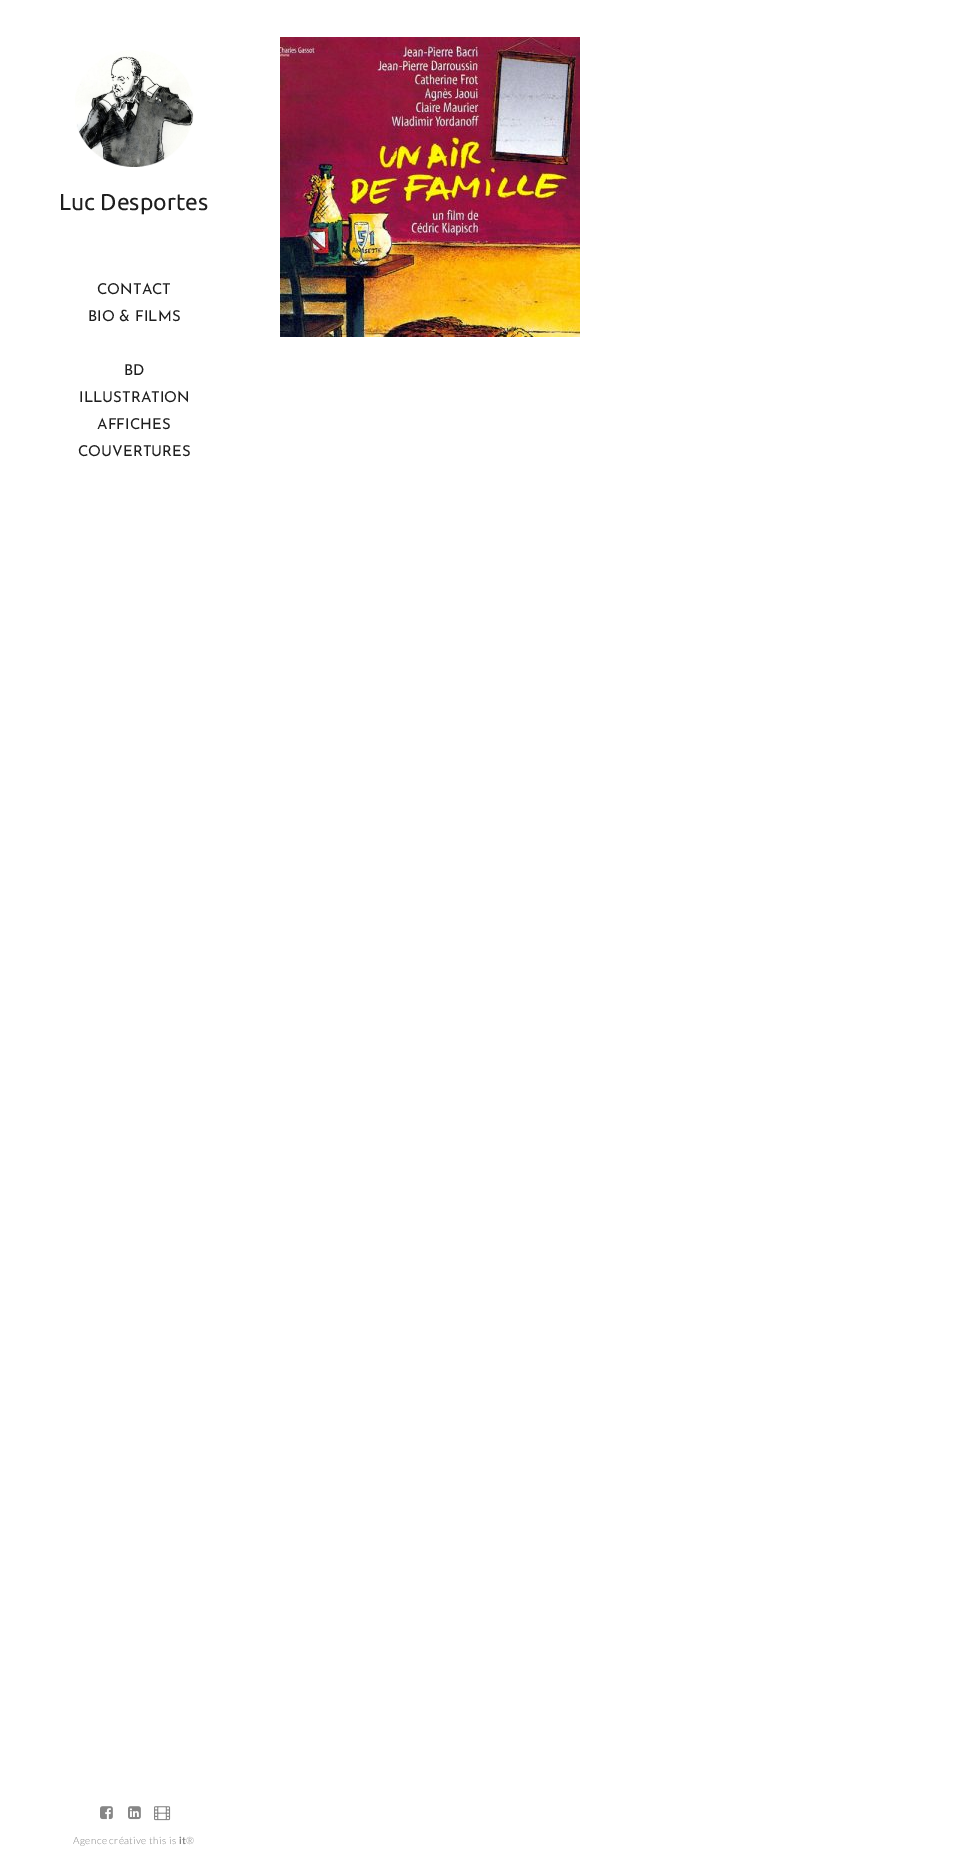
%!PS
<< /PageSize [979 1873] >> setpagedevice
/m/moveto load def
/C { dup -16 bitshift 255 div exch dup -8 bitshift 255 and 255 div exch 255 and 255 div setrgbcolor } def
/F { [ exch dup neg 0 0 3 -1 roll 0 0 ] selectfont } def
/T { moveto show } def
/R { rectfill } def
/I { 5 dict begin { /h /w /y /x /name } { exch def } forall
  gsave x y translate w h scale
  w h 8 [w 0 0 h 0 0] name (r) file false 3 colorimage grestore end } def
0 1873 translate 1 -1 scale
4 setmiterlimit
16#FFFFFF C
0 0 979 1873 R
(1.rgb) 75 50 119 117 I
/Ubuntu-Regular 23 F
16#1E1E1E C
(Luc Desportes) 59 210 T
/JosefinSans-Regular 15 F
(CONTACT) 97 294 T
(BIO & FILMS) 88 321 T
(BD) 124 375 T
(ILLUSTRATION) 79 402 T
(AFFICHES) 97 429 T
(COUVERTURES) 78 456 T
(2.rgb) 280 37 300 300 I
(3.rgb) 100 1806 13 14 I
(4.rgb) 128 1806 13 14 I
(5.rgb) 154 1806 17 15 I
/Lato-Light 10 F
16#868686 C
73 1844 m .4 0 (Agence créative this is) ashow
/Lato-Bold 10 F
179 1844 m .4 0 (it) ashow
/Lato-Light 10 F
186 1844 m .4 0 (®) ashow
showpage
